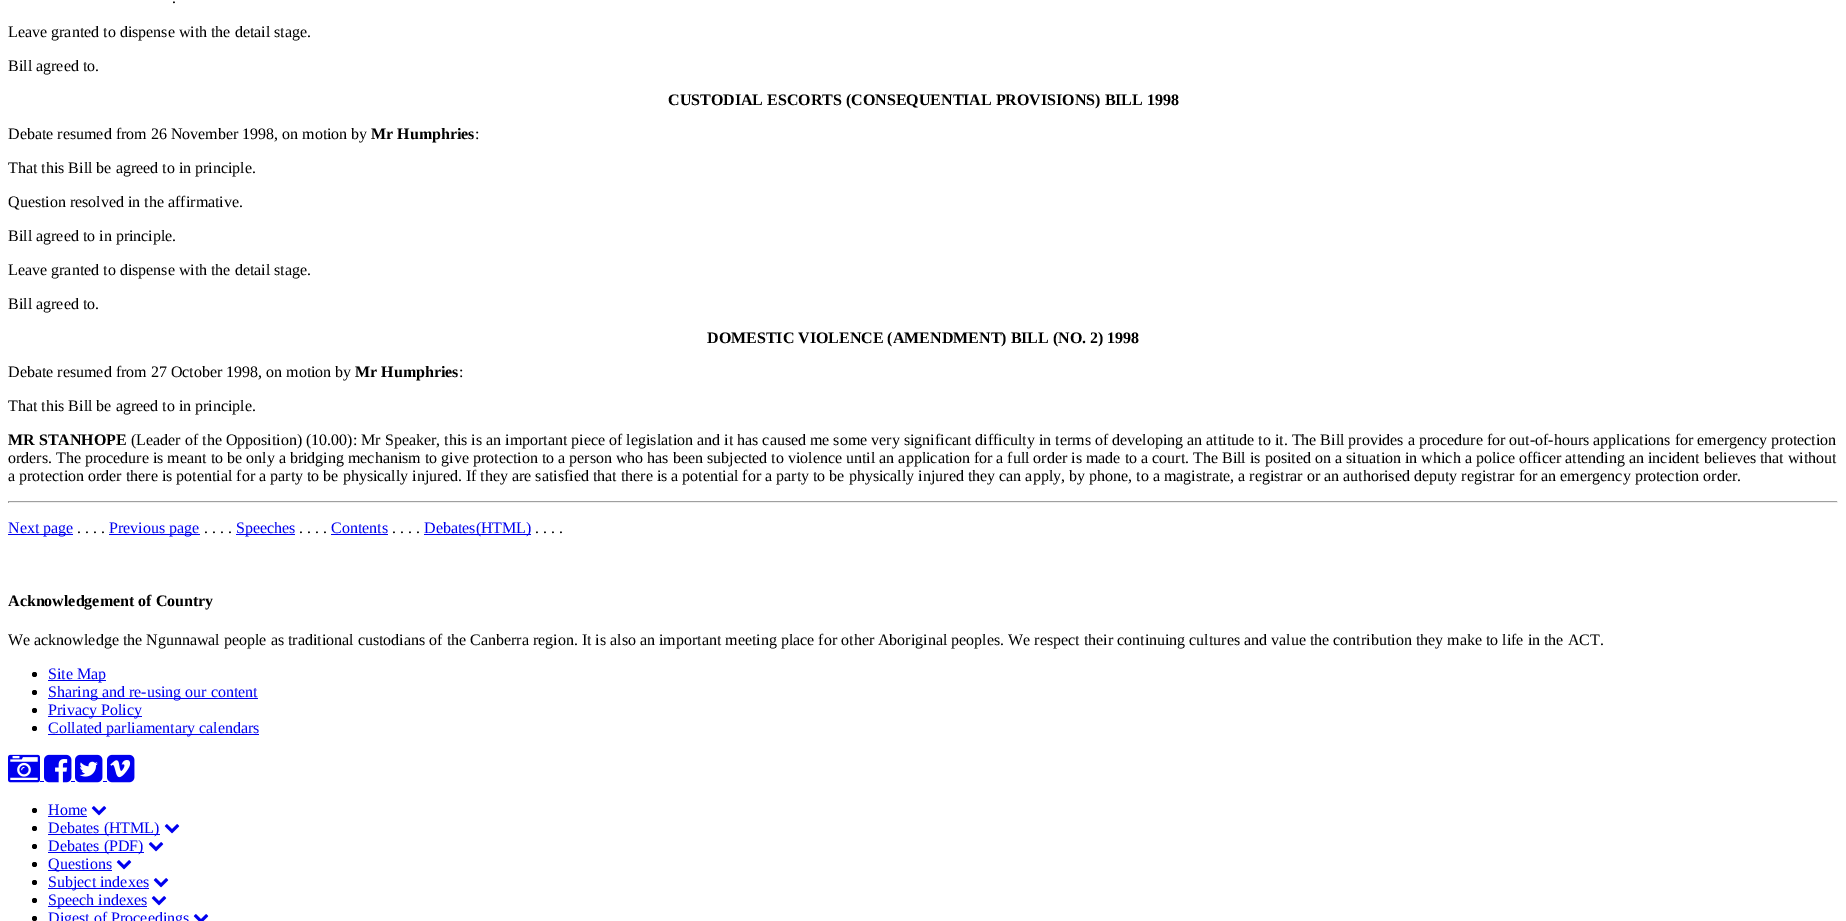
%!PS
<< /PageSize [1846 921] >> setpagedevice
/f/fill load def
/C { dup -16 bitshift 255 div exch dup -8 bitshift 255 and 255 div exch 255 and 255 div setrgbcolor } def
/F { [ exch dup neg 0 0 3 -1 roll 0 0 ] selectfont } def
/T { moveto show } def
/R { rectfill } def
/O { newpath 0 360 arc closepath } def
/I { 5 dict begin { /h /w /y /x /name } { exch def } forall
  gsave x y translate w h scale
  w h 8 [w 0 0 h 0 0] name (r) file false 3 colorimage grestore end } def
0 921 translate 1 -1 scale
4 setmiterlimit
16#FFFFFF C
0 0 1846 921 R
/LiberationSerif-Regular 16 F
16#000000 C
(.) 172 3 T
(Leave granted to dispense with the detail stage.) 8 37 T
(Bill agreed to.) 8 71 T
/LiberationSerif-Bold 16 F
(CUSTODIAL ESCORTS \(CONSEQUENTIAL PROVISIONS\) BILL 1998) 668 105 T
/LiberationSerif-Regular 16 F
(Debate resumed from 26 November 1998, on motion by) 8 139 T
/LiberationSerif-Bold 16 F
(Mr Humphries) 371 139 T
/LiberationSerif-Regular 16 F
(:) 475 139 T
(That this Bill be agreed to in principle.) 8 173 T
(Question resolved in the affirmative.) 8 207 T
(Bill agreed to in principle.) 8 241 T
(Leave granted to dispense with the detail stage.) 8 275 T
(Bill agreed to.) 8 309 T
/LiberationSerif-Bold 16 F
(DOMESTIC VIOLENCE \(AMENDMENT\) BILL \(NO. 2\) 1998) 707 343 T
/LiberationSerif-Regular 16 F
(Debate resumed from 27 October 1998, on motion by) 8 377 T
/LiberationSerif-Bold 16 F
(Mr Humphries) 355 377 T
/LiberationSerif-Regular 16 F
(:) 459 377 T
(That this Bill be agreed to in principle.) 8 411 T
/LiberationSerif-Bold 16 F
(MR STANHOPE) 8 445 T
/LiberationSerif-Regular 16 F
(\(Leader of the Opposition\) \(10.00\): Mr Speaker, this is an important piece of legislation and it has caused me some very significant difficulty in terms of developing an attitude to it. The Bill provides a procedure for out-of-hours applications for emergency protection) 131 445 T
(orders. The procedure is meant to be only a bridging mechanism to give protection to a person who has been subjected to violence until an application for a full order is made to a court. The Bill is posited on a situation in which a police officer attending an incident believes that without) 8 463 T
(a protection order there is potential for a party to be physically injured. If they are satisfied that there is a potential for a party to be physically injured they can apply, by phone, to a magistrate, a registrar or an authorised deputy registrar for an emergency protection order.) 8 481 T
16#9F9F9F C
8 501 1830 1 R
16#EEEEEE C
1837 501 1 2 R
8 502 1830 1 R
16#9F9F9F C
8 501 1 2 R
16#0000EE C
8 534 65 1 R
(Next page) 8 533 T
16#000000 C
(. . . .) 77 533 T
16#0000EE C
109 534 91 1 R
(Previous page) 109 533 T
16#000000 C
(. . . .) 204 533 T
16#0000EE C
236 534 59 1 R
(Speeches) 236 533 T
16#000000 C
(. . . .) 299 533 T
16#0000EE C
(Contents) 331 533 T
331 534 57 1 R
16#000000 C
(. . . .) 392 533 T
16#0000EE C
424 534 107 1 R
(Debates\(HTML\)) 424 533 T
16#000000 C
(. . . .) 535 533 T
/LiberationSerif-Bold 16 F
(Acknowledgement of Country) 8 606 T
/LiberationSerif-Regular 16 F
(We acknowledge the Ngunnawal people as traditional custodians of the Canberra region. It is also an important meeting place for other Aboriginal peoples. We respect their continuing cultures and value the contribution they make to life in the ACT.) 8 645 T
34.5 674.5 2.5 O f
16#0000EE C
48 680 58 1 R
(Site Map) 48 679 T
16#000000 C
34.5 692.5 2.5 O f
16#0000EE C
48 698 210 1 R
(Sharing and re-using our content) 48 697 T
16#000000 C
34.5 710.5 2.5 O f
16#0000EE C
48 716 94 1 R
(Privacy Policy) 48 715 T
16#000000 C
34.5 728.5 2.5 O f
16#0000EE C
48 734 211 1 R
(Collated parliamentary calendars) 48 733 T
(1.rgb) 8 754 32 29 I
40 781 4 1 R
(2.rgb) 44 754 28 29 I
71 781 4 1 R
(3.rgb) 75 754 28 29 I
103 781 4 1 R
(4.rgb) 107 754 28 29 I
16#000000 C
34.5 810.5 2.5 O f
16#0000EE C
(Home) 48 815 T
48 816 39 1 R
(5.rgb) 91 806 16 10 I
16#000000 C
34.5 828.5 2.5 O f
16#0000EE C
48 834 112 1 R
(Debates \(HTML\)) 48 833 T
(5.rgb) 164 824 16 10 I
16#000000 C
34.5 846.5 2.5 O f
16#0000EE C
48 852 96 1 R
(Debates \(PDF\)) 48 851 T
(5.rgb) 148 842 16 10 I
16#000000 C
34.5 864.5 2.5 O f
16#0000EE C
48 870 64 1 R
(Questions) 48 869 T
(5.rgb) 116 860 16 10 I
16#000000 C
34.5 882.5 2.5 O f
16#0000EE C
48 888 101 1 R
(Subject indexes) 48 887 T
(5.rgb) 153 878 16 10 I
16#000000 C
34.5 900.5 2.5 O f
16#0000EE C
48 906 99 1 R
(Speech indexes) 48 905 T
(5.rgb) 151 896 16 10 I
16#000000 C
34.5 918.5 2.5 O f
16#0000EE C
(Digest of Proceedings) 48 923 T
(6.rgb) 193 914 16 7 I
showpage
